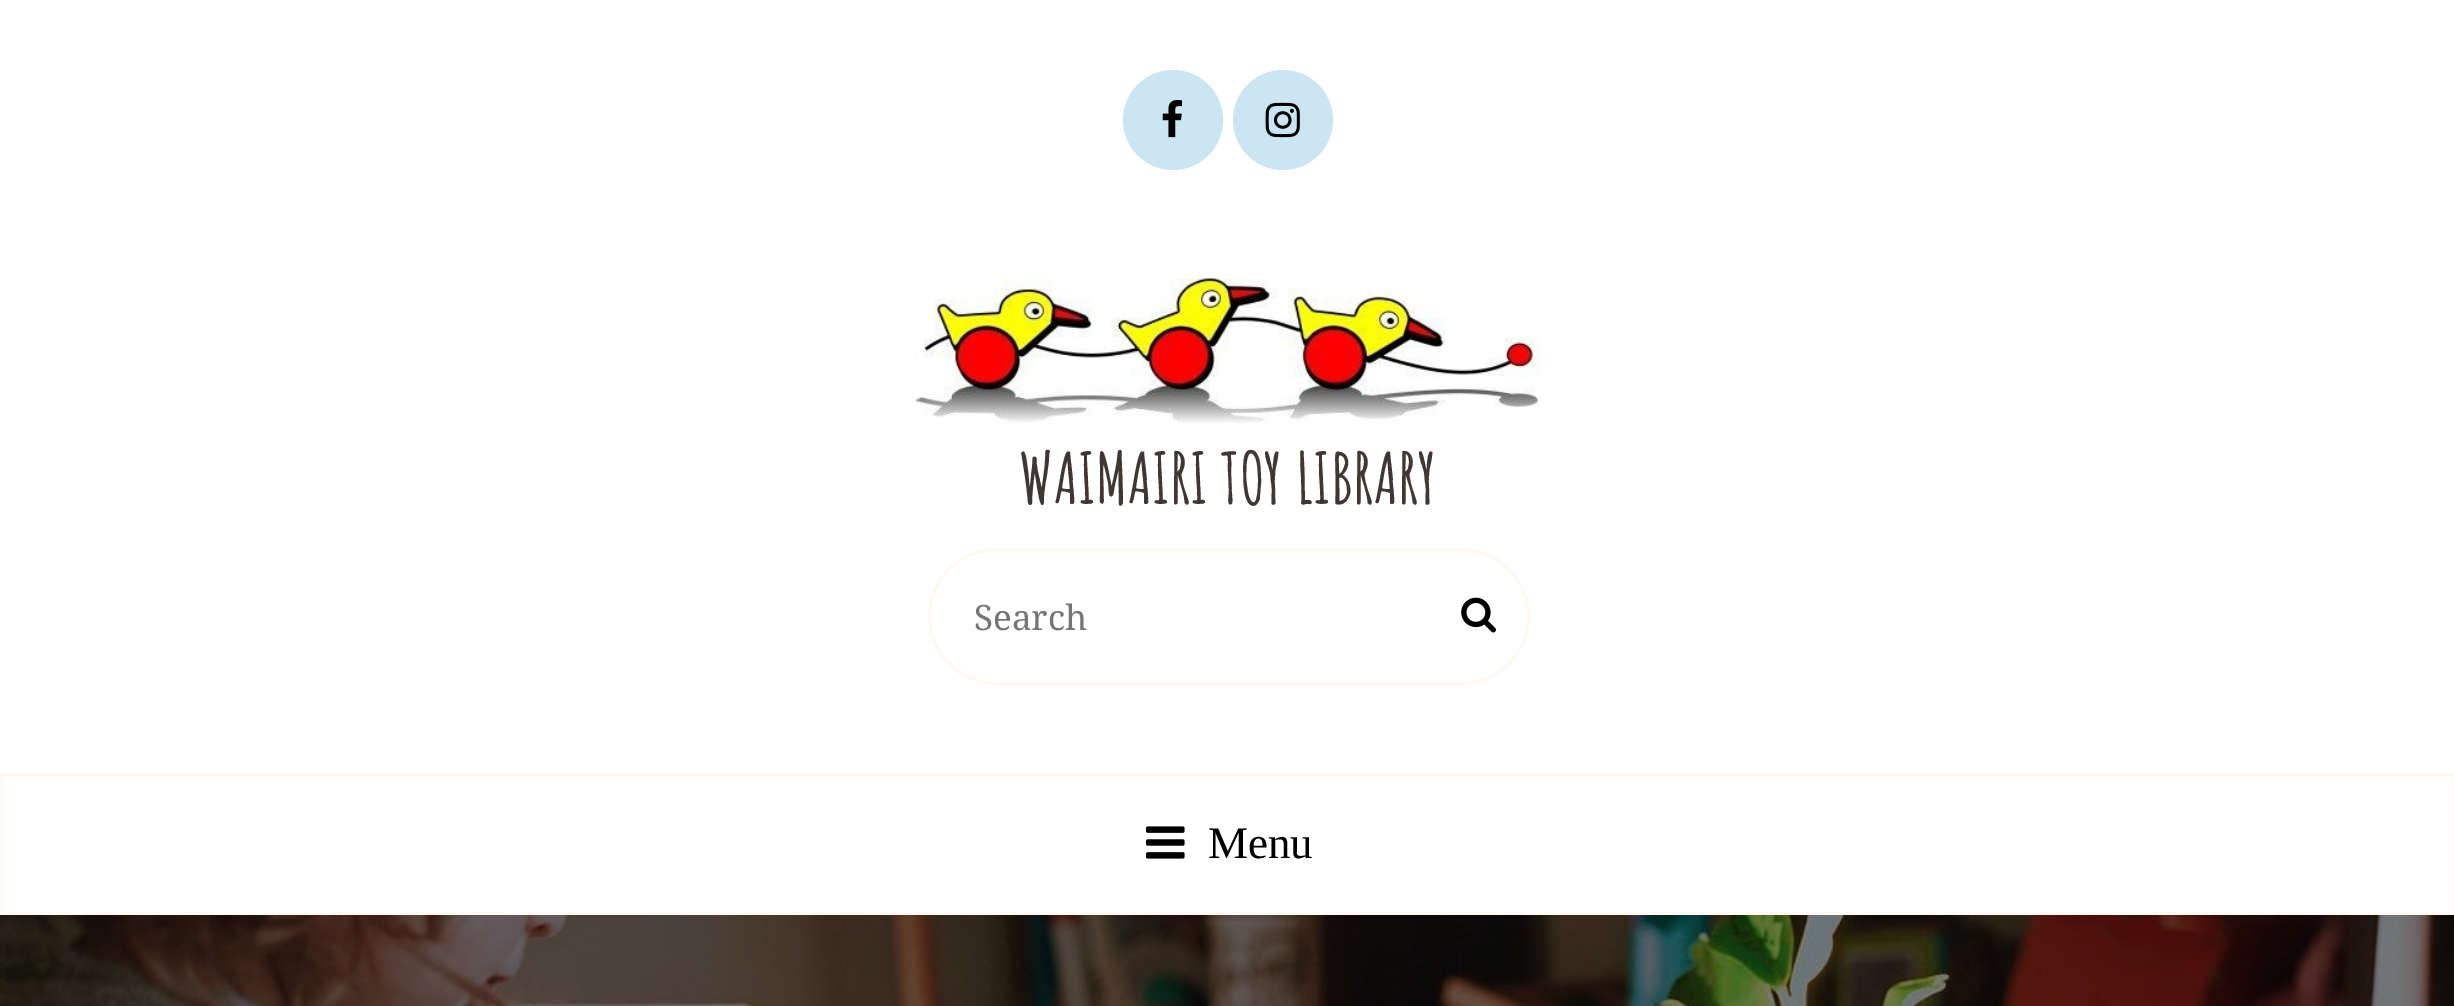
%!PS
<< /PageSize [2454 1006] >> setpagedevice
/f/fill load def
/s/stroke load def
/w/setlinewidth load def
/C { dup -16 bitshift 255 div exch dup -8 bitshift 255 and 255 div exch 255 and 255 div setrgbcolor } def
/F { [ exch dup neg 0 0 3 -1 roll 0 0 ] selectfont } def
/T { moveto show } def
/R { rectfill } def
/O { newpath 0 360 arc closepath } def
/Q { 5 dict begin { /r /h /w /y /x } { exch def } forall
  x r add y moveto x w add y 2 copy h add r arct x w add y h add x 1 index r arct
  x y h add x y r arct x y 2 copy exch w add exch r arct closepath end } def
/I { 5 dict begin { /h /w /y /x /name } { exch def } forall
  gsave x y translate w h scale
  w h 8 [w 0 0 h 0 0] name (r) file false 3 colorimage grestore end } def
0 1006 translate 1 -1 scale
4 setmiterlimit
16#FFFFFF C
0 0 2454 1006 R
16#CBE6F2 C
1173 120 50 O f
(1.rgb) 1162 100 21 38 I
1283 120 50 O f
(2.rgb) 1265 102 35 36 I
(3.rgb) 915 278 625 147 I
/AmaticSC-Bold 70 F
16#3F3734 C
(WAIMAIRI TOY LIBRARY) 1019 504 T
16#FEF9F3 C
3 w
929.5 549.5 599 134 67 Q s
/NotoSerif-Regular 35 F
16#757575 C
(Search) 974 630 T
(4.rgb) 1461 597 35 36 I
16#FEF9F3 C
1.5 774.5 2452 139 rectstroke
(5.rgb) 1146 826 39 33 I
/LiberationSerif-Regular 45 F
16#000000 C
(Menu) 1208 858 T
(6.rgb) 0 915 2454 91 I
showpage
